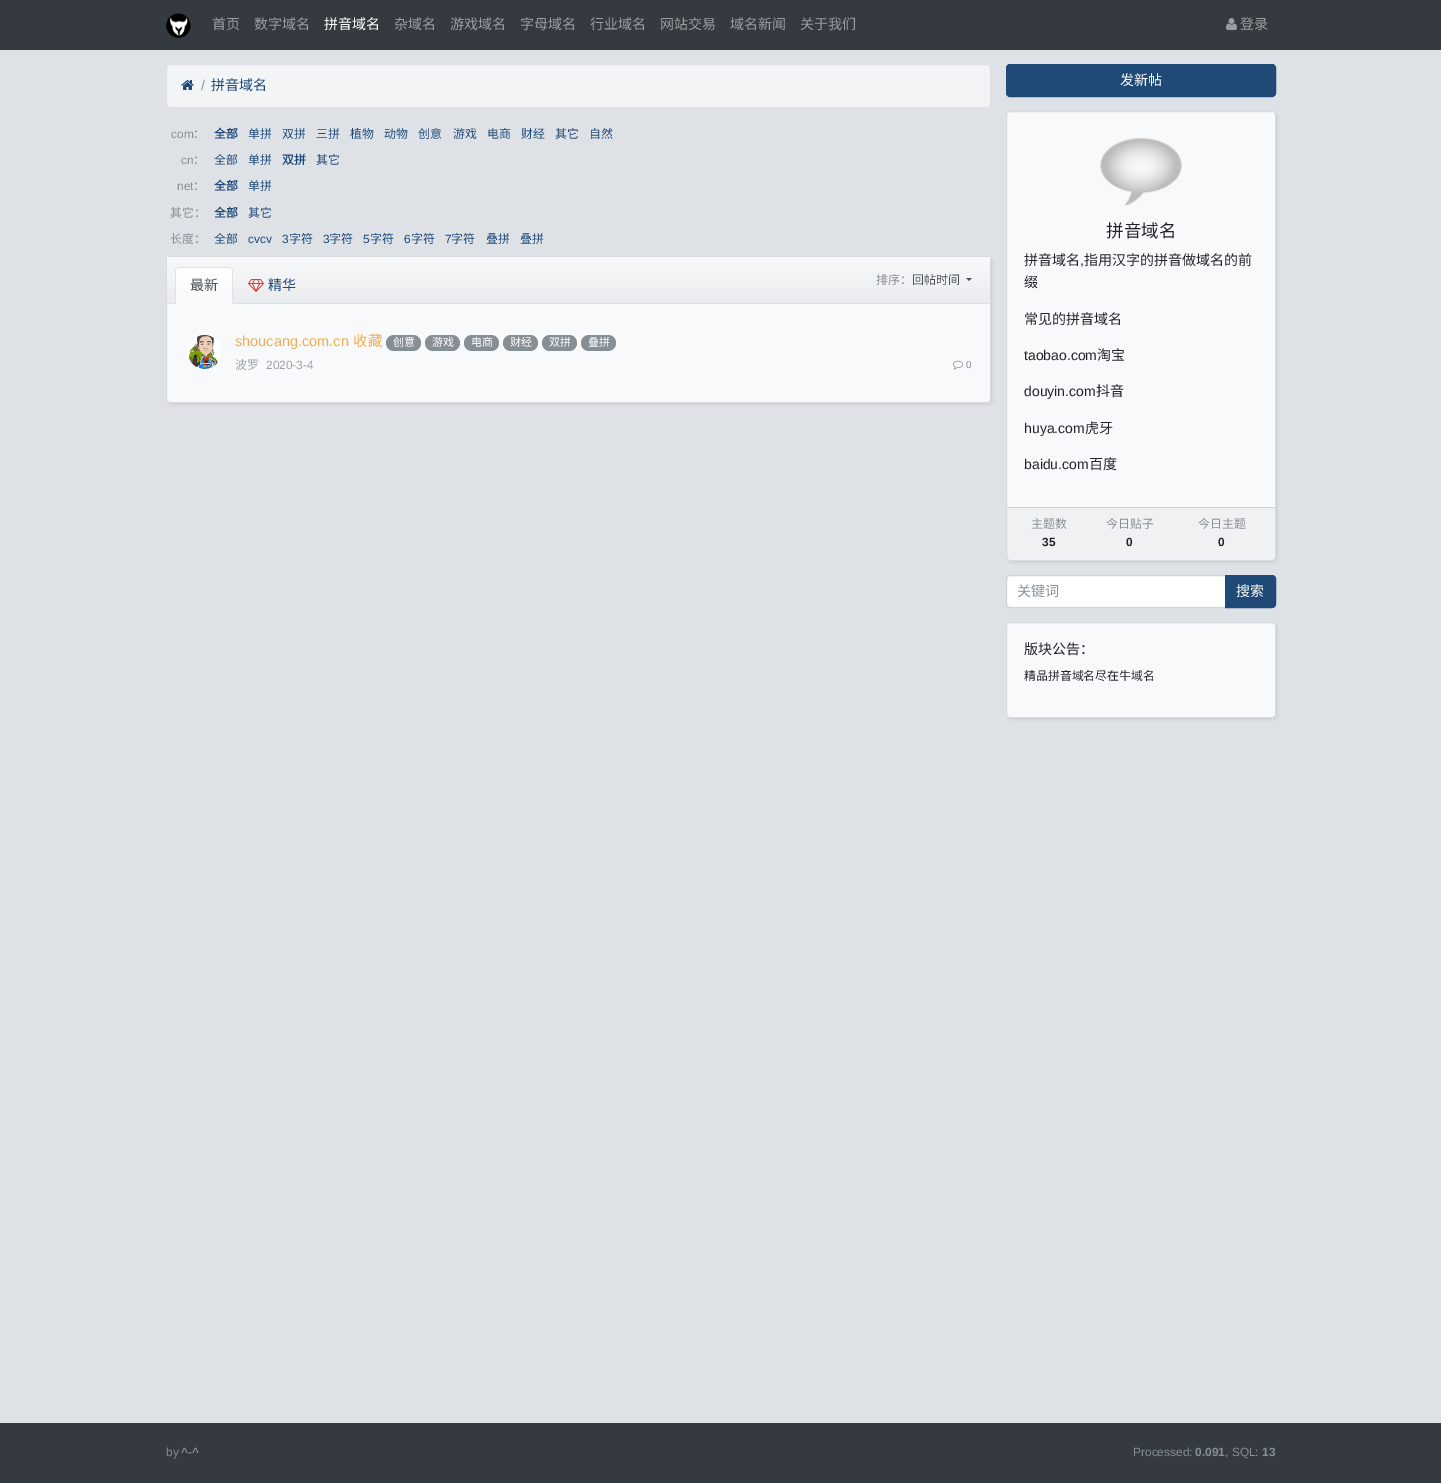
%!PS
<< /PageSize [1441 1483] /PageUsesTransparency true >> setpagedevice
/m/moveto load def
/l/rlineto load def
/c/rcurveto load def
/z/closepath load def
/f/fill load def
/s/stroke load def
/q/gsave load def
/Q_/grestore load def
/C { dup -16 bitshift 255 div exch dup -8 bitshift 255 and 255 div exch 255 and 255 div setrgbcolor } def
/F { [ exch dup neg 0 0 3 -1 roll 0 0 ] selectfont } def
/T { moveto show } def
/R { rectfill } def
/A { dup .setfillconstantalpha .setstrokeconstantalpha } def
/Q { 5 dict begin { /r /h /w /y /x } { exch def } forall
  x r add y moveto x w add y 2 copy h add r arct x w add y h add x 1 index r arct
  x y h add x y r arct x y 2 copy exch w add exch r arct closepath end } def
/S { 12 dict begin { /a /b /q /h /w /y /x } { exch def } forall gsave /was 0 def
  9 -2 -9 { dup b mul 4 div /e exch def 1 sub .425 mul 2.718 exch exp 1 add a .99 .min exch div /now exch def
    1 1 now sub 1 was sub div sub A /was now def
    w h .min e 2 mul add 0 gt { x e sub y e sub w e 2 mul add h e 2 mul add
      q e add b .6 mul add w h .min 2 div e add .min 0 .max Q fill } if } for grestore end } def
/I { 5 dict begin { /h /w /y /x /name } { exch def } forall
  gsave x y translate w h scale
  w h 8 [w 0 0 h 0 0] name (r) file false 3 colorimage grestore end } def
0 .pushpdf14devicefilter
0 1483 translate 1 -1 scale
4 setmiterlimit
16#DEE2E6 C
0 0 1441 1483 R
16#343A40 C
0 0 1441 50 R
(1.rgb) 166 13 25 25 I
/NotoSansCJKSC-Regular 14 F
16#9A9DA0 C
(首页) 212 29 T
(数字域名) 254 29 T
16#FFFFFF C
(拼音域名) 324 29 T
16#9A9DA0 C
(杂域名) 394 29 T
(游戏域名) 450 29 T
(字母域名) 520 29 T
(行业域名) 590 29 T
(网站交易) 660 29 T
(域名新闻) 730 29 T
(关于我们) 800 29 T
(2.rgb) 1226 18 11 12 I
(登录) 1240 29 T
16#F3F4F6 C
166.5 64.5 824 43 3.5 Q q f Q_
16#DEE2E6 C
s
(3.rgb) 181 80 13 10 I
/LiberationSans-Regular 14 F
16#868E96 C
(/) 201 90 T
/NotoSansCJKSC-Regular 14 F
16#1F4977 C
(拼音域名) 211 90 T
/LiberationSans-Regular 11.9 F
16#868E96 C
(com) 171 138 T
/NotoSansCJKSC-Regular 11.9 F
(：) 193 138 T
/NotoSansCJKSC-Bold 11.9 F
16#1F4977 C
(全部) 214 138 T
/NotoSansCJKSC-Regular 11.9 F
(单拼) 248 138 T
(双拼) 282 138 T
(三拼) 316 138 T
(植物) 350 138 T
(动物) 384 138 T
(创意) 418 138 T
(游戏) 453 138 T
(电商) 487 138 T
(财经) 521 138 T
(其它) 555 138 T
(自然) 589 138 T
/LiberationSans-Regular 11.9 F
16#868E96 C
(cn) 181 164 T
/NotoSansCJKSC-Regular 11.9 F
(：) 193 164 T
16#1F4977 C
(全部) 214 164 T
(单拼) 248 164 T
/NotoSansCJKSC-Bold 11.9 F
(双拼) 282 164 T
/NotoSansCJKSC-Regular 11.9 F
(其它) 316 164 T
/LiberationSans-Regular 11.9 F
16#868E96 C
(net) 177 190 T
/NotoSansCJKSC-Regular 11.9 F
(：) 193 190 T
/NotoSansCJKSC-Bold 11.9 F
16#1F4977 C
(全部) 214 190 T
/NotoSansCJKSC-Regular 11.9 F
(单拼) 248 190 T
16#868E96 C
(其它：) 170 217 T
/NotoSansCJKSC-Bold 11.9 F
16#1F4977 C
(全部) 214 217 T
/NotoSansCJKSC-Regular 11.9 F
(其它) 248 217 T
16#868E96 C
(长度：) 170 243 T
16#1F4977 C
(全部) 214 243 T
/LiberationSans-Regular 11.9 F
(cvcv) 248 243 T
(3) 282 243 T
/NotoSansCJKSC-Regular 11.9 F
(字符) 289 243 T
/LiberationSans-Regular 11.9 F
(3) 323 243 T
/NotoSansCJKSC-Regular 11.9 F
(字符) 329 243 T
/LiberationSans-Regular 11.9 F
(5) 363 243 T
/NotoSansCJKSC-Regular 11.9 F
(字符) 370 243 T
/LiberationSans-Regular 11.9 F
(6) 404 243 T
/NotoSansCJKSC-Regular 11.9 F
(字符) 411 243 T
/LiberationSans-Regular 11.9 F
(7) 445 243 T
/NotoSansCJKSC-Regular 11.9 F
(字符) 451 243 T
(叠拼) 486 243 T
(叠拼) 520 243 T
16#ADB5BD C
168 258 825 147 4 1.5 .25 S
16#F8F9FA C
166 256 825 147 4 Q f
0.12 A
16#000000 C
166.5 256.5 824 146 3.5 Q s
1 A
q 169.5 257 m 818 0 l 1.5 0 2.5 1 2.5 2.5 c 0 43.5 l -823 0 l 0 -43.5 l 0 -1.5 1 -2.5 2.5 -2.5 c z clip newpath
<< /ShadingType 2 /ColorSpace /DeviceRGB /Coords [579 303 579 257] /Extend [true true] /Function << /FunctionType 2 /Domain [0 1] /C0 [.914 .925 .937] /C1 [.973 .976 .98] /N 1 >> >> shfill Q_
16#DEE2E6 C
167 303 823 1 R
q
179 267 m 50 0 l 2 0 4 2 4 4 c 0 33 l -58 0 l 0 -33 l 0 -2 2 -4 4 -4 c z clip newpath
q 175 268 m 58 0 l 0 35 l -58 0 l z clip newpath
<< /ShadingType 2 /ColorSpace /DeviceRGB /Coords [204 303 204 268] /Extend [true true] /Function << /FunctionType 2 /Domain [0 1] /C0 [.973 .976 .98] /C1 [1 1 1] /N 1 >> >> shfill Q_
Q_
178 267 m -2 1 l 1 1 l 1 -1 l 52 0 l 1 1 l 1 -1 l -2 -1 l z f
233 304 m 0 -34 l -1 -2 l -.5 .5 l .5 1.5 l 0 33 l z f
16#F8F9FA C
233 304 m -1 -1 l -56 0 l -1 1 l z f
16#DEE2E6 C
175 304 m 1 -1 l 0 -33 l .5 -1.5 l -.5 -.5 l -1 2 l z f
/NotoSansCJKSC-Regular 14 F
16#495057 C
(最新) 190 290 T
(4.rgb) 248 279 16 13 I
16#1F4977 C
(精华) 268 290 T
/NotoSansCJKSC-Regular 12 F
16#868E96 C
(排序：) 876 284 T
16#495057 C
(回帖时间) 912 284 T
966 278 m 6 0 l -3 3 l z f
(5.rgb) 188 335 33 34 I
/LiberationSans-Regular 14.5 F
16#F0AD4E C
(shoucang.com.cn) 235 346 T
/NotoSansCJKSC-Regular 14.5 F
(收藏) 353 346 T
16#868E96 C
386 335 35 16 8 Q f
/NotoSansCJKSC-Regular 11 F
16#FFFFFF C
(创意) 393 346 T
16#868E96 C
425 335 35 16 8 Q f
16#FFFFFF C
(游戏) 432 346 T
16#868E96 C
464 335 35 16 8 Q f
16#FFFFFF C
(电商) 471 346 T
16#868E96 C
503 335 35 16 8 Q f
16#FFFFFF C
(财经) 510 346 T
16#868E96 C
542 335 35 16 8 Q f
16#FFFFFF C
(双拼) 549 346 T
16#868E96 C
581 335 35 16 8 Q f
16#FFFFFF C
(叠拼) 588 346 T
/NotoSansCJKSC-Regular 11.9 F
16#9DA3AA C
(波罗) 235 369 T
/LiberationSans-Regular 11.9 F
(2020-3-4) 266 369 T
(6.rgb) 953 360 11 10 I
/LiberationSans-Regular 10 F
16#868E96 C
(0) 966 368 T
16#1F4977 C
1006.5 64.5 269 32 3.5 Q q f Q_
s
/NotoSansCJKSC-Regular 14 F
16#FFFFFF C
(发新帖) 1120 85 T
16#ADB5BD C
1008 113 270 450 4 1.5 .25 S
16#F8F9FA C
1006 111 270 450 4 Q f
0.12 A
16#000000 C
1006.5 111.5 269 449 3.5 Q s
1 A
(7.rgb) 1100 138 82 68 I
/NotoSansCJKSC-Regular 17.5 F
16#212529 C
(拼音域名) 1106 237 T
/NotoSansCJKSC-Regular 14 F
(拼音域名) 1024 265 T
/LiberationSans-Regular 14 F
(,) 1080 265 T
/NotoSansCJKSC-Regular 14 F
(指用汉字的拼音做域名的前) 1084 265 T
(缀) 1024 287 T
(常见的拼音域名) 1024 324 T
/LiberationSans-Regular 14 F
(taobao.com) 1024 360 T
/NotoSansCJKSC-Regular 14 F
(淘宝) 1097 360 T
/LiberationSans-Regular 14 F
(douyin.com) 1024 396 T
/NotoSansCJKSC-Regular 14 F
(抖音) 1096 396 T
/LiberationSans-Regular 14 F
(huya.com) 1024 433 T
/NotoSansCJKSC-Regular 14 F
(虎牙) 1085 433 T
/LiberationSans-Regular 14 F
(baidu.com) 1024 469 T
/NotoSansCJKSC-Regular 14 F
(百度) 1089 469 T
0.03 A
16#000000 C
1007 508 268 52 R
1 A
16#D2D3D4 C
1007 507 268 1 R
/NotoSansCJKSC-Regular 11.9 F
16#868E96 C
(主题数) 1031 528 T
/LiberationSans-Bold 11.9 F
16#212529 C
(35) 1042 546 T
/NotoSansCJKSC-Regular 11.9 F
16#868E96 C
(今日贴子) 1106 528 T
/LiberationSans-Bold 11.9 F
16#212529 C
(0) 1126 546 T
/NotoSansCJKSC-Regular 11.9 F
16#868E96 C
(今日主题) 1198 528 T
/LiberationSans-Bold 11.9 F
16#212529 C
(0) 1218 546 T
16#FFFFFF C
1009.5 576 m 215.5 0 l 0 31 l -215.5 0 l -1.5 0 -2.5 -1 -2.5 -2.5 c 0 -26 l 0 -1.5 1 -2.5 2.5 -2.5 c z f
16#CED4DA C
1010 575.5 m 215.5 0 l 0 32 l -215.5 0 l -2 0 -3.5 -1.5 -3.5 -3.5 c 0 -25 l 0 -2 1.5 -3.5 3.5 -3.5 c z s
/NotoSansCJKSC-Regular 14 F
16#868E96 C
(关键词) 1017 596 T
16#1F4977 C
1225.5 575.5 m 46.5 0 l 2 0 3.5 1.5 3.5 3.5 c 0 25 l 0 2 -1.5 3.5 -3.5 3.5 c -46.5 0 l z q f Q_
s
16#FFFFFF C
(搜索) 1236 596 T
16#ADB5BD C
1008 624 270 96 4 1.5 .25 S
16#F8F9FA C
1006 622 270 96 4 Q f
0.12 A
16#000000 C
1006.5 622.5 269 95 3.5 Q s
1 A
16#212529 C
(版块公告：) 1024 654 T
/NotoSansCJKSC-Regular 11.9 F
(精品拼音域名尽在牛域名) 1024 680 T
16#343A40 C
0 1423 1441 60 R
/LiberationSans-Regular 11.9 F
16#868E96 C
(by) 166 1456 T
/LiberationSans-Bold 11.9 F
(^-^) 181 1456 T
/LiberationSans-Regular 11.9 F
(Processed:) 1133 1456 T
/LiberationSans-Bold 11.9 F
(0.091) 1195 1456 T
/LiberationSans-Regular 11.9 F
(, SQL:) 1225 1456 T
/LiberationSans-Bold 11.9 F
(13) 1262 1456 T
.poppdf14devicefilter showpage
